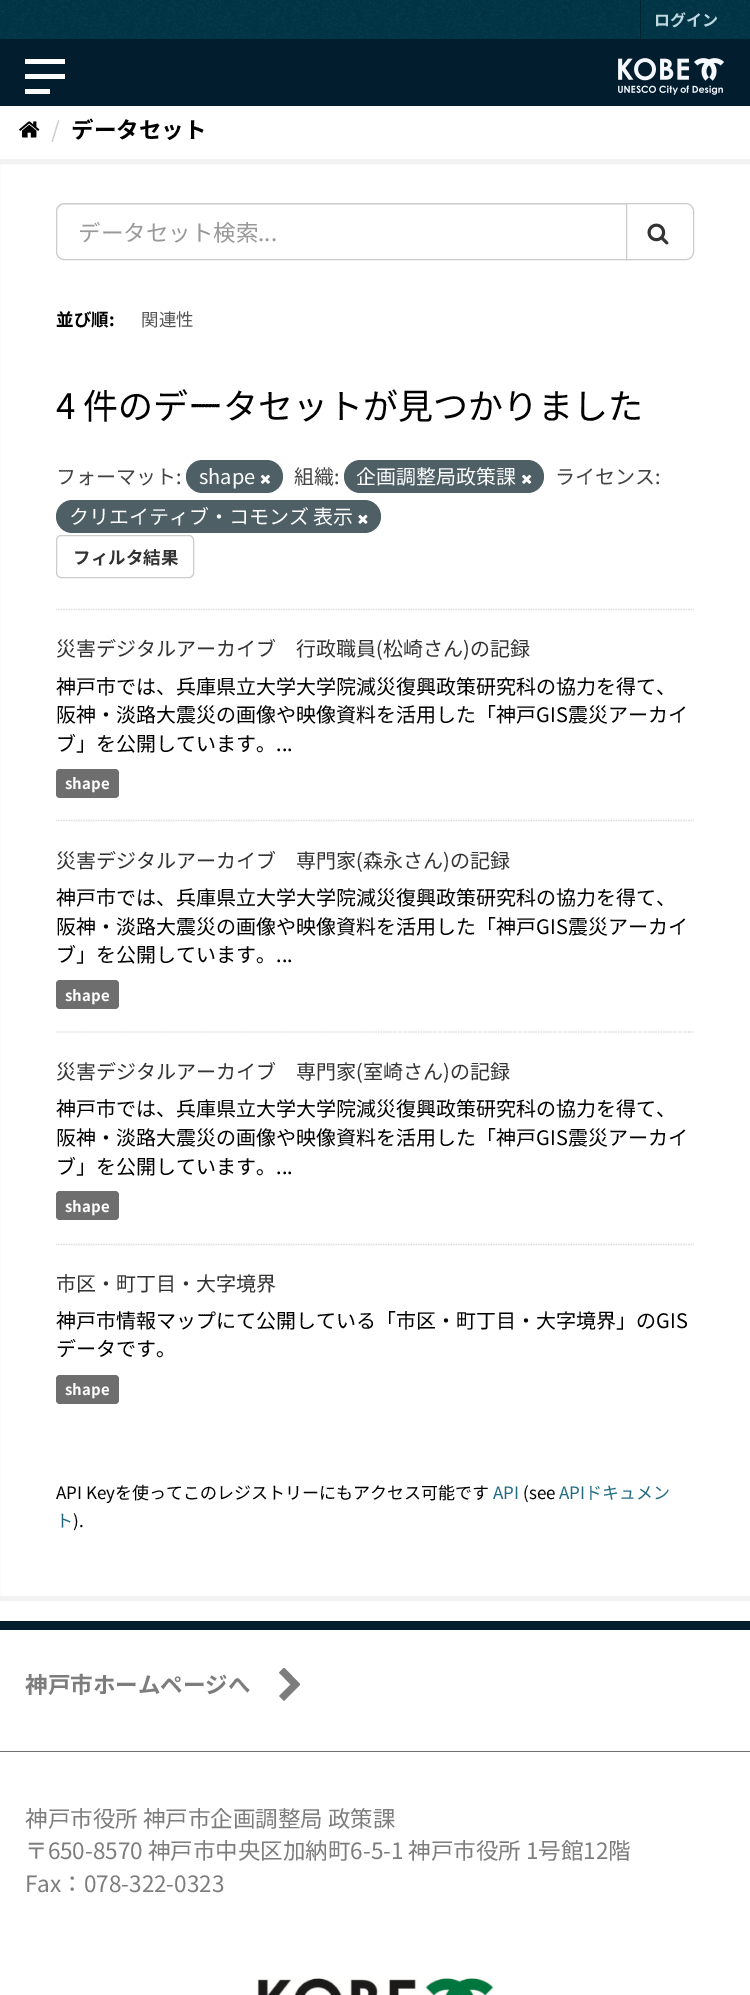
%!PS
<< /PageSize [750 1995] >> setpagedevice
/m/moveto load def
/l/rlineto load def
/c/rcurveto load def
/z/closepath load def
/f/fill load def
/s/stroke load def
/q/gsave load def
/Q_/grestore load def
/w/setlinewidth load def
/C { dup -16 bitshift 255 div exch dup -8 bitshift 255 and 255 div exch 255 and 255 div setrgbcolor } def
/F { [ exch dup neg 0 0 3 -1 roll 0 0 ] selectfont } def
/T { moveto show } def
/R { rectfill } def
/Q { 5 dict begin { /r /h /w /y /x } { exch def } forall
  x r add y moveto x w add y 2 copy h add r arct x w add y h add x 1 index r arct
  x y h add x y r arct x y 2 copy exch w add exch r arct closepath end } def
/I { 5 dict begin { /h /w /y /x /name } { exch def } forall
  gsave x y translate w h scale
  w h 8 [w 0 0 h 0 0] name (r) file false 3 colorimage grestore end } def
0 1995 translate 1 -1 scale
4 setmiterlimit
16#FFFFFF C
0 0 750 1995 R
16#003647 C
0 0 750 39 R
(1.rgb) 0 0 750 38 I
16#00232E C
640 0 1 39 R
/NotoSansJP-Bold 16 F
16#BFD7DE C
(ログイン) 654 26 T
16#021D2E C
0 39 750 67 R
16#FFFFFF C
25 59 40 5 R
25 74 40 5 R
25 89 25 5 R
(2.rgb) 618 58 106 37 I
(3.rgb) 19 121 21 17 I
/NotoSansJP-Regular 22.5 F
16#CCCCCC C
(/) 51 138 T
/NotoSansJP-Bold 22.5 F
16#000000 C
(データセット) 71 138 T
16#F2F2F2 C
5 w
-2.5 161.5 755 1437 rectstroke
16#DDDDDD C
1.2 w
[1.25 1.25] 0 setdash
56 609.5 m 638 0 l s
16#ECECEC C
64 205 m 562 0 l 0 -1 l -562 0 l -3 0 -6 3 -6 6 c 0 1 l 0 -3 2 -6 6 -6 c z f
16#CCCCCC C
1 w
[] 0 setdash
64 203.5 m 563.5 0 l 0 56 l -563.5 0 l -4 0 -7.5 -3.5 -7.5 -7.5 c 0 -41 l 0 -4 3.5 -7.5 7.5 -7.5 c z s
/NotoSansJP-Regular 22.5 F
16#999999 C
(データセット検索...) 78 241 T
16#FFFFFF C
626.5 203.5 m 59.5 0 l 4 0 7.5 3.5 7.5 7.5 c 0 41 l 0 4 -3.5 7.5 -7.5 7.5 c -59.5 0 l z q f Q_
16#CCCCCC C
s
(4.rgb) 647 223 22 22 I
/NotoSansJP-Bold 17.5 F
16#000000 C
(並び順:) 56 326 T
/NotoSansJP-Regular 17.5 F
16#555555 C
(関連性) 141 326 T
/NotoSansJP-Regular 35 F
16#000000 C
(4 件のデータセットが見つかりました) 56 419 T
/NotoSansJP-Regular 20 F
16#444444 C
(フォーマット:) 56 484 T
16#4E5F65 C
186 460 97 33 16.5 Q f
16#FFFFFF C
(shape) 199 484 T
(5.rgb) 260 474 10 10 I
16#444444 C
(組織:) 294 484 T
16#4E5F65 C
344 460 200 33 16.5 Q f
16#FFFFFF C
(企画調整局政策課) 356 484 T
(6.rgb) 522 474 10 10 I
16#444444 C
(ライセンス:) 555 484 T
16#4E5F65 C
56 500 325 33 16.5 Q f
16#FFFFFF C
(クリエイティブ・コモンズ 表示) 69 524 T
(7.rgb) 358 514 10 10 I
16#CCCCCC C
56.5 535.5 137 42 4.5 Q s
/NotoSansJP-Bold 17.5 F
16#333333 C
(フィルタ結果) 73 564 T
16#DDDDDD C
1.2 w
[1.25 1.25] 0 setdash
56 820.5 m 638 0 l s
/NotoSansJP-Regular 20 F
16#333333 C
(災害デジタルアーカイブ　行政職員\(松崎さん\)の記録) 56 656 T
16#000000 C
(神戸市では、兵庫県立大学大学院減災復興政策研究科の協力を得て、) 56 694 T
(阪神・淡路大震災の画像や映像資料を活用した「神戸GIS震災アーカイ) 56 722 T
(ブ」を公開しています。...) 56 751 T
16#6E6E6E C
56 769 63 29 4 Q f
/NotoSansJP-Bold 15 F
16#FFFFFF C
(shape) 65 789 T
16#DDDDDD C
56 1032 m 638 0 l s
/NotoSansJP-Regular 20 F
16#333333 C
(災害デジタルアーカイブ　専門家\(森永さん\)の記録) 56 868 T
16#000000 C
(神戸市では、兵庫県立大学大学院減災復興政策研究科の協力を得て、) 56 905 T
(阪神・淡路大震災の画像や映像資料を活用した「神戸GIS震災アーカイ) 56 934 T
(ブ」を公開しています。...) 56 962 T
16#6E6E6E C
56 980 63 29 4 Q f
/NotoSansJP-Bold 15 F
16#FFFFFF C
(shape) 65 1001 T
16#DDDDDD C
56 1244.5 m 638 0 l s
/NotoSansJP-Regular 20 F
16#333333 C
(災害デジタルアーカイブ　専門家\(室崎さん\)の記録) 56 1079 T
16#000000 C
(神戸市では、兵庫県立大学大学院減災復興政策研究科の協力を得て、) 56 1116 T
(阪神・淡路大震災の画像や映像資料を活用した「神戸GIS震災アーカイ) 56 1145 T
(ブ」を公開しています。...) 56 1174 T
16#6E6E6E C
56 1191 63 29 4 Q f
/NotoSansJP-Bold 15 F
16#FFFFFF C
(shape) 65 1212 T
/NotoSansJP-Regular 20 F
16#333333 C
(市区・町丁目・大字境界) 56 1291 T
16#000000 C
(神戸市情報マップにて公開している「市区・町丁目・大字境界」のGIS) 56 1328 T
(データです。) 56 1356 T
16#6E6E6E C
56 1375 63 29 4 Q f
/NotoSansJP-Bold 15 F
16#FFFFFF C
(shape) 65 1395 T
/NotoSansJP-Regular 17 F
16#000000 C
(API Keyを使ってこのレジストリーにもアクセス可能です) 56 1499 T
16#206B82 C
(API) 493 1499 T
16#000000 C
(\(see) 523 1499 T
16#206B82 C
(APIドキュメン) 559 1499 T
(ト) 56 1527 T
16#000000 C
(\).) 73 1527 T
16#021D2E C
0 1621 750 9 R
q
279 1668 21 33 rectclip
16#7D7D7D C
300.5 1684.5 m -16.5 16.5 l -5 -5 l 11.5 -11.5 l -11.5 -12 l 5 -5 l z f
Q_
/NotoSansJP-Bold 22.5 F
16#7D7D7D C
(神戸市ホームページへ) 25 1693 T
16#707070 C
0 1751 750 1 R
/NotoSansJP-Regular 22.5 F
16#7D7D7D C
(神戸市役所 神戸市企画調整局 政策課) 25 1827 T
(〒650-8570 神戸市中央区加納町6-5-1 神戸市役所 1号館12階) 25 1859 T
(Fax：078-322-0323) 25 1892 T
(8.rgb) 257 1976 237 19 I
showpage
